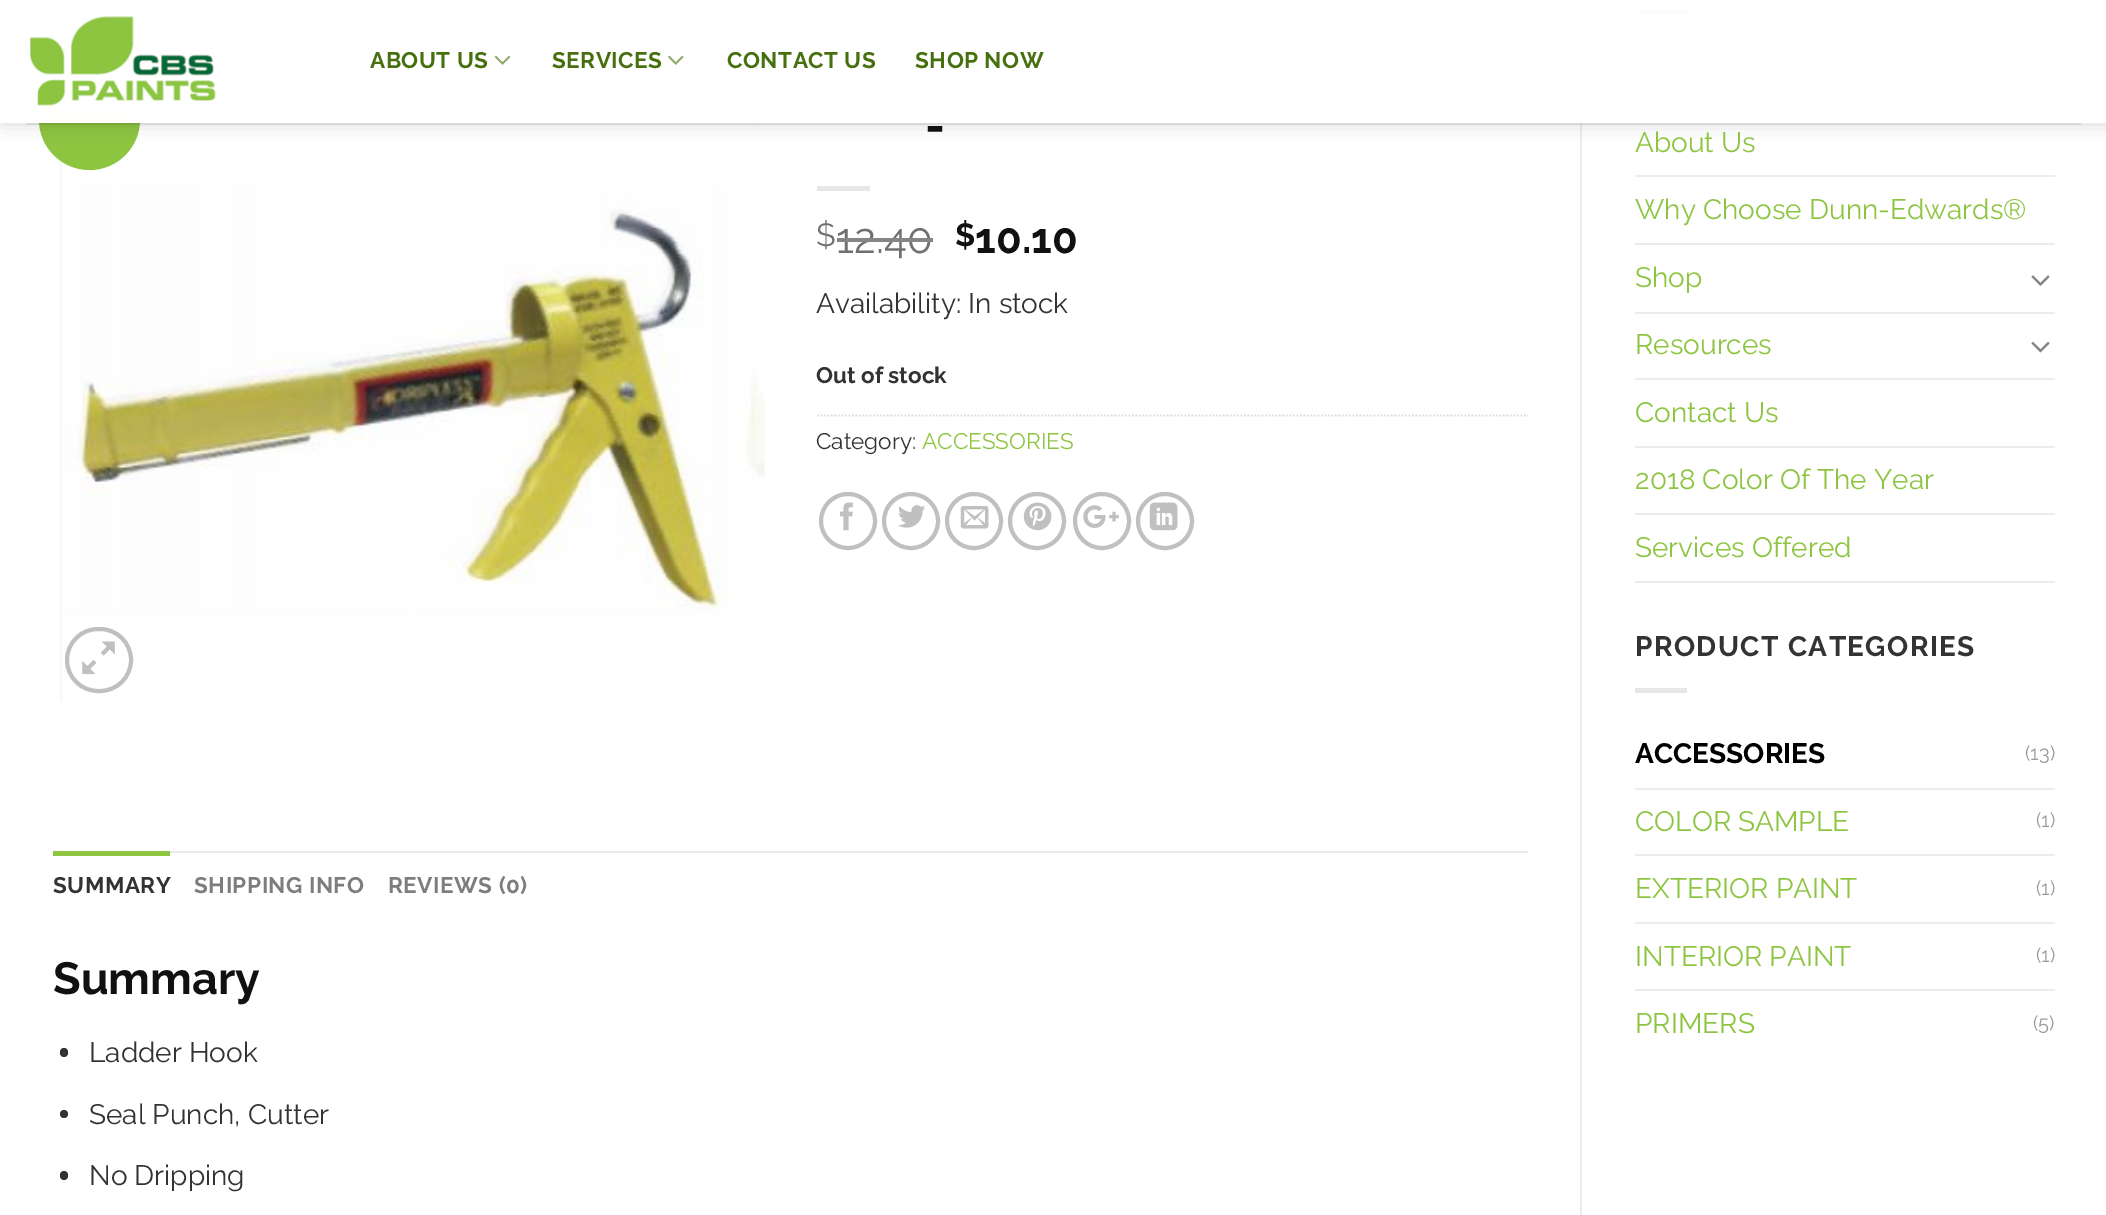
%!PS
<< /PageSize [2106 1215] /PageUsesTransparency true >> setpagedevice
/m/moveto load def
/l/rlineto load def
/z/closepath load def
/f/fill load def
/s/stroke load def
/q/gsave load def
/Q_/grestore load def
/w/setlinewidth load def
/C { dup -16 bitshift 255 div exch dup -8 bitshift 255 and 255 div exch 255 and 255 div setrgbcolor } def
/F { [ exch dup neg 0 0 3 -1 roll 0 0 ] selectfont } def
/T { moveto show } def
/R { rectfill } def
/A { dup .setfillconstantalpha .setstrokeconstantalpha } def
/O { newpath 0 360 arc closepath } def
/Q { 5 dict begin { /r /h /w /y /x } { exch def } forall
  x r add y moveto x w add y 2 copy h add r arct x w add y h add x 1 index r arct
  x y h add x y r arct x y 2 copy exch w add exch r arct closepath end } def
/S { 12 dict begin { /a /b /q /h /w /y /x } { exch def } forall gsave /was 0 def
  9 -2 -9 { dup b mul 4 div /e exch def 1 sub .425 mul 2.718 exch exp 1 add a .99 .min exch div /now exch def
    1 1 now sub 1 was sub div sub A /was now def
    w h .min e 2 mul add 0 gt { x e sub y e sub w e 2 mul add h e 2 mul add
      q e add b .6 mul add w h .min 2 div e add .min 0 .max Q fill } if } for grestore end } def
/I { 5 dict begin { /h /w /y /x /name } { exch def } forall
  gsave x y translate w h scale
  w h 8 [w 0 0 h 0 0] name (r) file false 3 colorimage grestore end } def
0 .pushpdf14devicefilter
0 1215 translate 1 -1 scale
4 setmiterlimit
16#FFFFFF C
0 0 2106 1215 R
(4.rgb) 59 17 706 685 I
16#C0C0C0 C
4 w
686 27 65 64 32 Q s
(5.rgb) 701 43 34 29 I
16#8DC541 C
39 68 101 102 50.5 Q f
16#ECECEC C
1580 0 2 1215 R
16#E6E6E6 C
1635 9 52 5 R
16#ECECEC C
1635 109 420 2 R
q
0 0 m 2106 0 l 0 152 l -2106 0 l z 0 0 m 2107 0 l 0 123 l -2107 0 l z eoclip newpath
16#000000 C
2 2 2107 122 0 9 .15 S
Q_
0.9 A
16#FFFFFF C
0 0 2106 123 R
39 25 1543 98 R
1 A
(1.rgb) 28 16 188 90 I
/Raleway-Bold 22.5 F
16#466F0E C
370 68 m .5 0 (ABOUT US) ashow
(2.rgb) 494 55 17 10 I
552 68 m .5 0 (SERVICES) ashow
(3.rgb) 668 55 16 10 I
727 68 m .5 0 (CONTACT US) ashow
915 68 m .5 0 (SHOP NOW) ashow
0.1 A
16#333333 C
26 123 2055 2 R
1 A
16#C0C0C0 C
67 629 64 62 31 Q s
(6.rgb) 82 641 33 34 I
/Raleway-Bold 48 F
16#111111 C
(-) 925 142 T
16#E6E6E6 C
817 186 53 5 R
/Raleway-Regular 32 F
16#707070 C
($) 816 246 T
/Raleway-Regular 42 F
(12.40) 836 253 T
16#858585 C
837 238 96 4 R
/Raleway-Bold 32 F
16#111111 C
($) 955 246 T
/Raleway-Bold 42 F
(10.10) 975 253 T
/Raleway-Regular 28 F
16#333333 C
(Availability: In stock) 816 313 T
/Raleway-Bold 22.5 F
(Out of stock) 816 383 T
16#DDDDDD C
1.8 w
[1.75 1.75] 0 setdash
817 415.5 m 711 0 l s
/Raleway-Regular 22.5 F
16#333333 C
(Category:) 816 449 T
16#8DC541 C
(ACCESSORIES) 922 449 T
16#C0C0C0 C
4 w
[] 0 setdash
848 521 27 O s
(7.rgb) 839 502 14 29 I
911 521 27 O s
(8.rgb) 898 505 27 23 I
974 521 27 O s
(9.rgb) 960 506 29 23 I
1037 521 27 O s
(10.rgb) 1023 502 29 29 I
1102 521 27 O s
(11.rgb) 1083 505 36 23 I
1165 521 27 O s
(12.rgb) 1149 502 29 29 I
16#ECECEC C
170 851 1358 2 R
16#8DC541 C
53 851 117 5 R
/Raleway-Bold 22.5 F
16#333333 C
53 893 m .5 0 (SUMMARY) ashow
16#7D7D7D C
194 893 m .5 0 (SHIPPING INFO) ashow
388 893 m .5 0 (REVIEWS \(0\)) ashow
/Raleway-Bold 45 F
16#111111 C
(Summary) 53 994 T
16#333333 C
60 1048 8 9 4 Q f
/Raleway-Regular 28 F
(Ladder Hook) 89 1062 T
64 1114 4 O f
(Seal Punch, Cutter) 89 1124 T
60 1171 8 9 4 Q f
(No Dripping) 89 1185 T
16#8DC541 C
(About Us) 1635 152 T
16#ECECEC C
1635 175 420 2 R
16#8DC541 C
(Why Choose Dunn-Edwards®) 1635 219 T
16#ECECEC C
1635 243 420 2 R
16#8DC541 C
(Shop) 1635 287 T
(13.rgb) 2031 275 19 11 I
16#ECECEC C
1635 312 420 2 R
16#8DC541 C
(Resources) 1635 354 T
(14.rgb) 2031 341 19 12 I
16#ECECEC C
1635 378 420 2 R
16#8DC541 C
(Contact Us) 1635 422 T
16#ECECEC C
1635 446 420 2 R
16#8DC541 C
(2018 Color Of The Year) 1635 489 T
16#ECECEC C
1635 513 420 2 R
16#8DC541 C
(Services Offered) 1635 557 T
16#ECECEC C
1635 581 420 2 R
/Raleway-Bold 28 F
16#333333 C
1635 656 m 1.4 0 (PRODUCT CATEGORIES) ashow
16#E6E6E6 C
1635 688 52 5 R
16#000000 C
(ACCESSORIES) 1635 763 T
/Raleway-Regular 20 F
16#999999 C
(\(13\)) 2025 760 T
16#ECECEC C
1635 788 420 2 R
/Raleway-Regular 28 F
16#8DC541 C
(COLOR SAMPLE) 1635 831 T
/Raleway-Regular 20 F
16#999999 C
(\(1\)) 2036 827 T
16#ECECEC C
1635 854 420 2 R
/Raleway-Regular 28 F
16#8DC541 C
(EXTERIOR PAINT) 1635 898 T
/Raleway-Regular 20 F
16#999999 C
(\(1\)) 2036 895 T
16#ECECEC C
1635 922 420 2 R
/Raleway-Regular 28 F
16#8DC541 C
(INTERIOR PAINT) 1635 966 T
/Raleway-Regular 20 F
16#999999 C
(\(1\)) 2036 962 T
16#ECECEC C
1635 989 420 2 R
/Raleway-Regular 28 F
16#8DC541 C
(PRIMERS) 1635 1033 T
/Raleway-Regular 20 F
16#999999 C
(\(5\)) 2033 1030 T
.poppdf14devicefilter showpage
